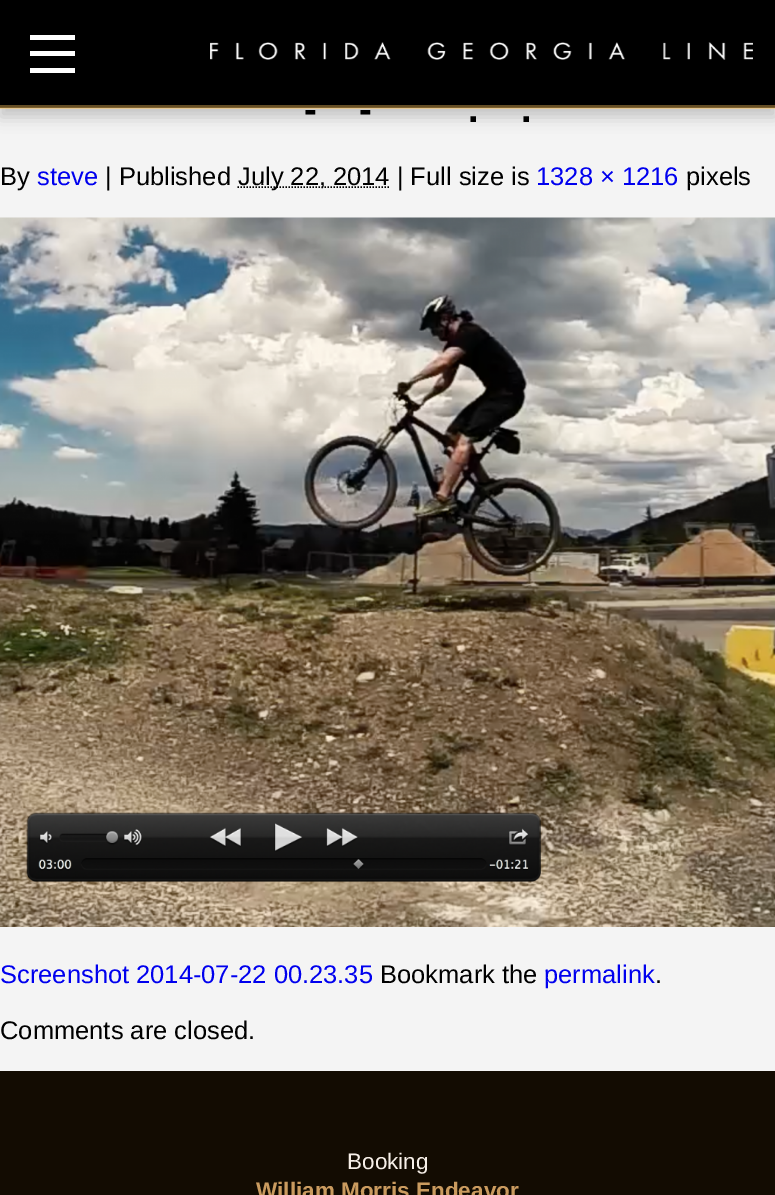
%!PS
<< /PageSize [775 1195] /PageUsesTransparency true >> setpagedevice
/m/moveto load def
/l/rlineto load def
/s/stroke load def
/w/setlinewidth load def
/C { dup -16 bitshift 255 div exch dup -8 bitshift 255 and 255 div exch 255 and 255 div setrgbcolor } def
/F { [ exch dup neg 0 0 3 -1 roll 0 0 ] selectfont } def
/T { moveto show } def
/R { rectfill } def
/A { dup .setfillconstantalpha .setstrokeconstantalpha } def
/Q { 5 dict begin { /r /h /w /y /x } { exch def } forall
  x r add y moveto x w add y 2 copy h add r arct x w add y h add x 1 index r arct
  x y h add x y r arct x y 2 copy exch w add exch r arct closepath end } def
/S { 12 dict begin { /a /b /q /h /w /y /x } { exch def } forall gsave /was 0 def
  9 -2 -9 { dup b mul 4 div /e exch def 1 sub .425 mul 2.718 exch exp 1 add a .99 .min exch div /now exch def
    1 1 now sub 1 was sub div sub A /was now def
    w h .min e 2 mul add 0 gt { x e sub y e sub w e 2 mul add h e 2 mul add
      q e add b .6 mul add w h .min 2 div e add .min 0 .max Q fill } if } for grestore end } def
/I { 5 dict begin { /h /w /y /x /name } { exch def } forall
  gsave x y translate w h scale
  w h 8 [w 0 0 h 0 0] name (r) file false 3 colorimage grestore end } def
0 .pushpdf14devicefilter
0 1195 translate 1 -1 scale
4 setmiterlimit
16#F4F4F4 C
0 0 775 1195 R
16#000000 C
0 9 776 108 0 7.5 .2 S
0 0 775 108 R
0.5 A
16#FCC35D C
0 107 775 2 R
1 A
16#FFFFFF C
30 35 45 5 R
30 51 45 5 R
30 68 45 5 R
(1.rgb) 210 42 543 18 I
16#654E25 C
0 105 775 2 R
/LiberationSans-Bold 38 F
16#000000 C
(-) 304 122 T
(-) 359 122 T
(.) 468 122 T
(.) 521 122 T
/LiberationSans-Regular 25.5 F
(By) 0 185 T
16#0000EE C
(steve) 37 185 T
16#000000 C
(| Published) 105 185 T
1.5 w
[1.5 1.5] 0 setdash
237.5 187 m 152 0 l s
(July 22, 2014 | Full size is) 238 185 T
16#0000EE C
(1328 × 1216) 536 185 T
16#000000 C
(pixels) 686 185 T
(2.rgb) 0 217 775 710 I
16#0000EE C
(Screenshot 2014-07-22 00.23.35) 0 983 T
16#000000 C
(Bookmark the) 380 983 T
16#0000EE C
(permalink) 544 983 T
16#000000 C
(.) 655 983 T
(Comments are closed.) 0 1039 T
16#130C02 C
0 1071 775 124 R
/LiberationSans-Regular 22.5 F
16#F7F0E9 C
(Booking) 347 1169 T
/LiberationSans-Bold 22.5 F
16#CA9B5F C
(William Morris Endeavor) 256 1198 T
.poppdf14devicefilter showpage
